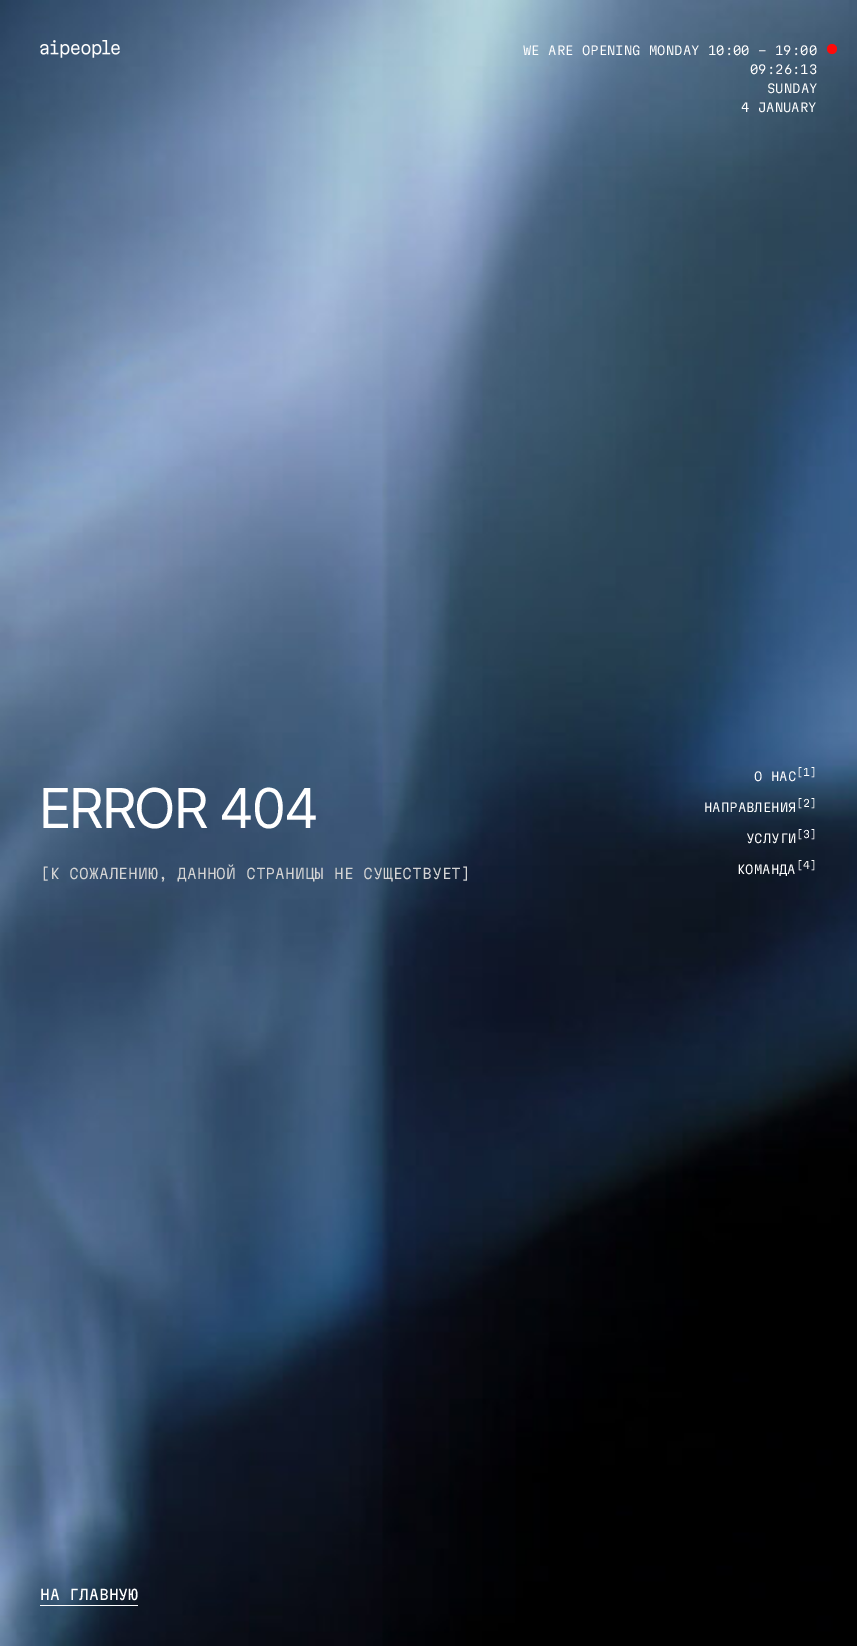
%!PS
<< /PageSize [857 1646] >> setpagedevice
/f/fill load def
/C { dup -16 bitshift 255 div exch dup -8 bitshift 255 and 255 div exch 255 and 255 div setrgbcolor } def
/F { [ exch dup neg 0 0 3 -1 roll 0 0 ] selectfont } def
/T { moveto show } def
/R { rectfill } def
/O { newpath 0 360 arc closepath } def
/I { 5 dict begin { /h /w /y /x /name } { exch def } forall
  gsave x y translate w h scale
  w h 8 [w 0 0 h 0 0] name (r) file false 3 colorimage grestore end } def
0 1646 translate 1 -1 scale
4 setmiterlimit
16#FFFFFF C
0 0 857 1646 R
(2.rgb) 0 0 857 1646 I
(1.rgb) 40 40 80 18 I
/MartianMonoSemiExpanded-Light 12 F
(WE ARE OPENING MONDAY 10:00 - 19:00) 523 55 T
16#FF0A0A C
832 49 5 O f
16#FFFFFF C
(09:26:13) 750 74 T
(SUNDAY) 767 93 T
(4 JANUARY) 741 112 T
(О НАС) 754 781 T
/MartianMonoSemiExpanded-Light 10 F
([1]) 796 776 T
/MartianMonoSemiExpanded-Light 12 F
(НАПРАВЛЕНИЯ) 704 812 T
/MartianMonoSemiExpanded-Light 10 F
([2]) 796 807 T
/MartianMonoSemiExpanded-Light 12 F
(УСЛУГИ) 746 843 T
/MartianMonoSemiExpanded-Light 10 F
([3]) 796 838 T
/MartianMonoSemiExpanded-Light 12 F
(КОМАНДА) 737 874 T
/MartianMonoSemiExpanded-Light 10 F
([4]) 796 869 T
/InterTight-Regular 55 F
(ERROR 404) 40 828 T
/MartianMonoSemiExpanded-Light 14 F
16#D4D4D4 C
([К СОЖАЛЕНИЮ, ДАННОЙ СТРАНИЦЫ НЕ СУЩЕСТВУЕТ]) 40 879 T
/MartianMonoSemiExpanded-Regular 14 F
16#FFFFFF C
(НА ГЛАВНУЮ) 40 1600 T
40 1605 98 1 R
showpage
